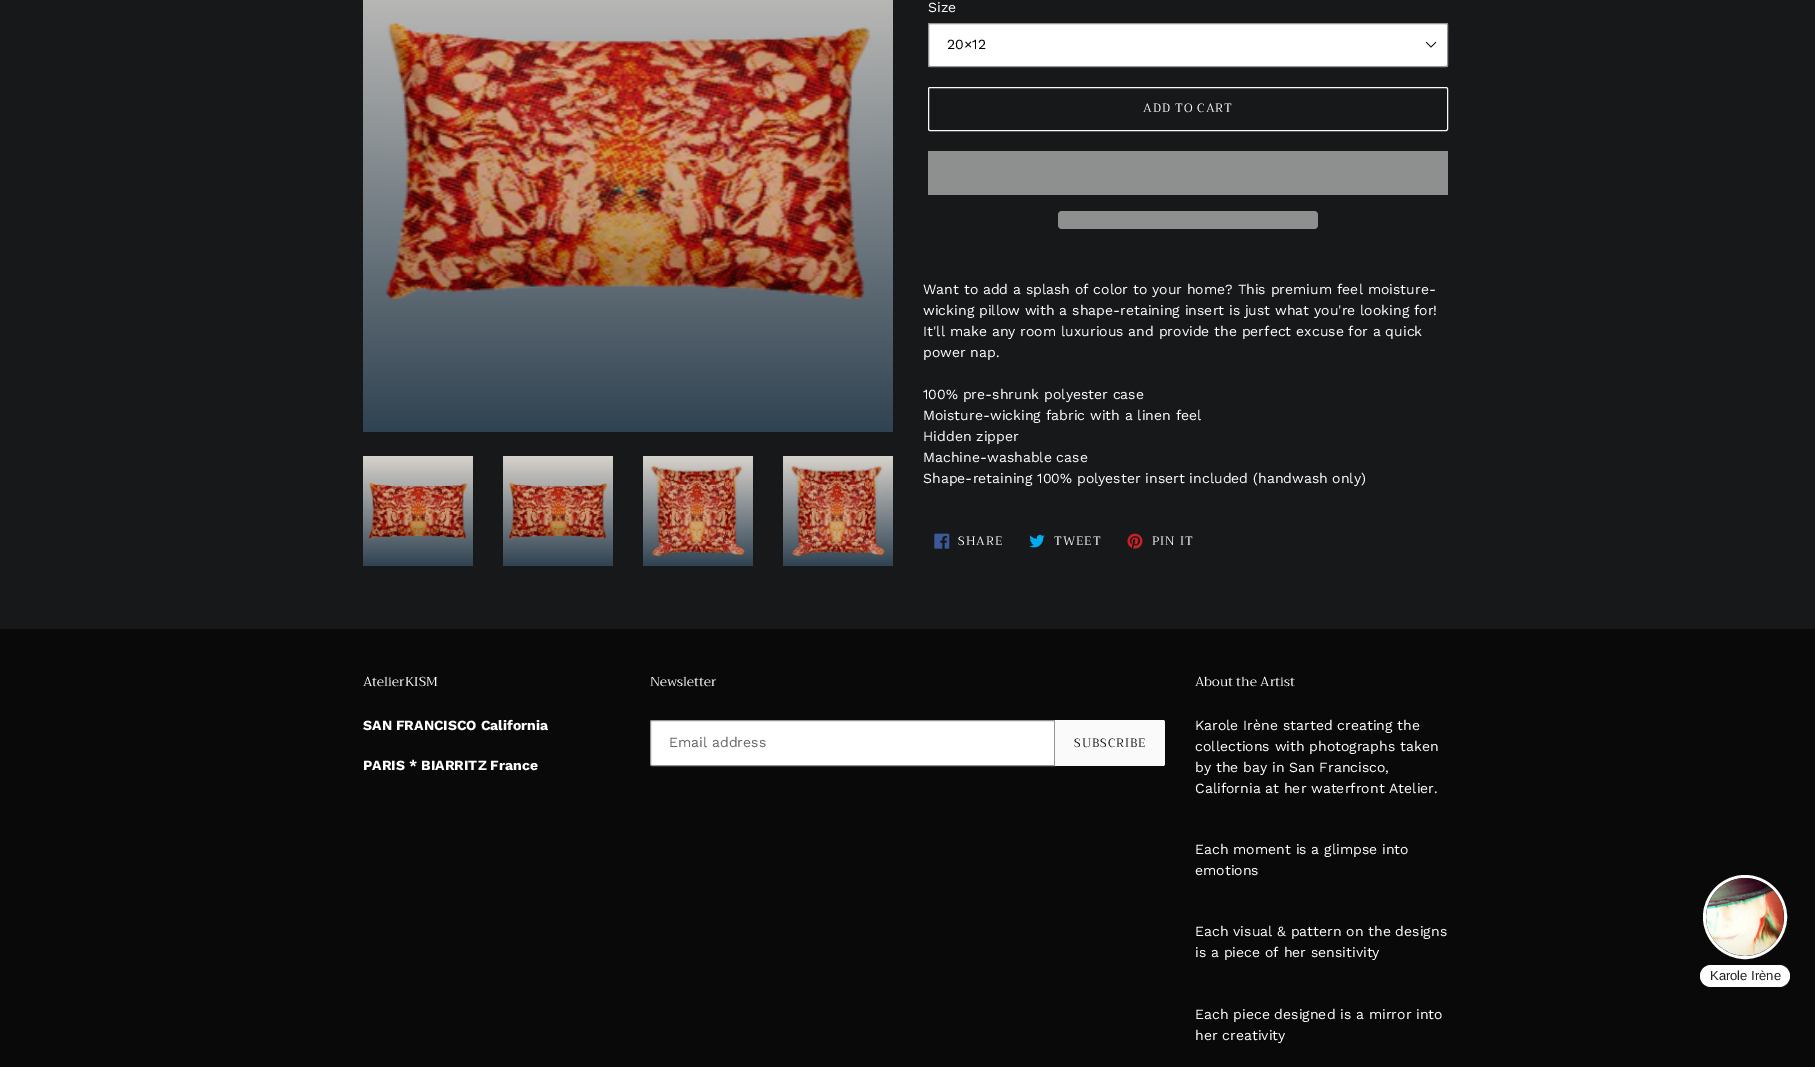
%!PS
<< /PageSize [1815 1067] >> setpagedevice
/m/moveto load def
/l/rlineto load def
/c/rcurveto load def
/z/closepath load def
/f/fill load def
/s/stroke load def
/q/gsave load def
/Q_/grestore load def
/w/setlinewidth load def
/C { dup -16 bitshift 255 div exch dup -8 bitshift 255 and 255 div exch 255 and 255 div setrgbcolor } def
/F { [ exch dup neg 0 0 3 -1 roll 0 0 ] selectfont } def
/T { moveto show } def
/R { rectfill } def
/O { newpath 0 360 arc closepath } def
/Q { 5 dict begin { /r /h /w /y /x } { exch def } forall
  x r add y moveto x w add y 2 copy h add r arct x w add y h add x 1 index r arct
  x y h add x y r arct x y 2 copy exch w add exch r arct closepath end } def
/I { 5 dict begin { /h /w /y /x /name } { exch def } forall
  gsave x y translate w h scale
  w h 8 [w 0 0 h 0 0] name (r) file false 3 colorimage grestore end } def
0 1067 translate 1 -1 scale
4 setmiterlimit
16#161819 C
0 0 1815 1067 R
q 363 0 m 530 0 l 0 432 l -530 0 l z clip newpath
<< /ShadingType 2 /ColorSpace /DeviceRGB /Coords [628 -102 628 432] /Extend [true true] /Function << /FunctionType 2 /Domain [0 1] /C0 [.843 .824 .8] /C1 [.188 .263 .322] /N 1 >> >> shfill Q_
(1.rgb) 385 22 486 278 I
q 363 456 m 110 0 l 0 110 l -110 0 l z clip newpath
<< /ShadingType 2 /ColorSpace /DeviceRGB /Coords [418 456 418 566] /Extend [true true] /Function << /FunctionType 2 /Domain [0 1] /C0 [.843 .824 .8] /C1 [.188 .263 .322] /N 1 >> >> shfill Q_
(2.rgb) 368 482 100 57 I
q 503 456 m 110 0 l 0 110 l -110 0 l z clip newpath
<< /ShadingType 2 /ColorSpace /DeviceRGB /Coords [558 456 558 566] /Extend [true true] /Function << /FunctionType 2 /Domain [0 1] /C0 [.843 .824 .8] /C1 [.188 .263 .322] /N 1 >> >> shfill Q_
(2.rgb) 508 482 100 57 I
q 643 456 m 110 0 l 0 110 l -110 0 l z clip newpath
<< /ShadingType 2 /ColorSpace /DeviceRGB /Coords [698 456 698 566] /Extend [true true] /Function << /FunctionType 2 /Domain [0 1] /C0 [.843 .824 .8] /C1 [.188 .263 .322] /N 1 >> >> shfill Q_
(3.rgb) 650 465 95 92 I
q 783 456 m 110 0 l 0 110 l -110 0 l z clip newpath
<< /ShadingType 2 /ColorSpace /DeviceRGB /Coords [838 456 838 566] /Extend [true true] /Function << /FunctionType 2 /Domain [0 1] /C0 [.843 .824 .8] /C1 [.188 .263 .322] /N 1 >> >> shfill Q_
(3.rgb) 790 465 95 92 I
/WorkSans-Regular 14 F
16#FFFFFF C
(Size) 928 12 T
928 23 520 44 2 Q f
(4.rgb) 1425 41 12 7 I
16#949494 C
928.5 23.5 519 43 1.5 Q s
16#000000 C
(20×12) 947 49 T
16#FAFAFA C
928.5 87.5 519 43 1.5 Q s
/Trirong-Regular 12 F
16#FFFFFF C
1143 112 m 1 0 (ADD TO CART) ashow
16#8E8F8F C
928 151 520 44 R
1058 211 260 18 4 Q f
/WorkSans-Regular 14 F
16#FFFFFF C
(Want to add a splash of color to your home? This premium feel moisture-) 923 294 T
(wicking pillow with a shape-retaining insert is just what you're looking for!) 923 315 T
(It'll make any room luxurious and provide the perfect excuse for a quick) 923 336 T
(power nap.) 923 357 T
(100% pre-shrunk polyester case) 923 399 T
(Moisture-wicking fabric with a linen feel) 923 420 T
(Hidden zipper) 923 441 T
(Machine-washable case) 923 462 T
(Shape-retaining 100% polyester insert included \(handwash only\)) 923 483 T
(5.rgb) 934 533 16 16 I
/Trirong-Regular 12 F
958 545 m 1 0 (SHARE) ashow
(6.rgb) 1029 534 16 14 I
1054 545 m 1 0 (TWEET) ashow
(7.rgb) 1127 533 16 16 I
1152 545 m 1 0 (PIN IT) ashow
16#0A0909 C
0 629 1815 438 R
/Trirong-Regular 13 F
16#FFFFFF C
(AtelierKISM) 363 686 T
/WorkSans-Bold 14 F
(SAN FRANCISCO California) 363 730 T
(PARIS * BIARRITZ France) 363 770 T
/Trirong-Regular 13 F
(Newsletter) 650 686 T
652 720.5 m 402.5 0 l 0 45 l -402.5 0 l -1 0 -1.5 -.5 -1.5 -1.5 c 0 -42 l 0 -1 .5 -1.5 1.5 -1.5 c z q f Q_
16#949494 C
s
/WorkSans-Regular 14 F
16#666666 C
(Email address) 669 747 T
16#FAFAFA C
1055 720 m 108 0 l 1 0 2 1 2 2 c 0 42 l 0 1 -1 2 -2 2 c -108 0 l z f
/Trirong-Regular 12 F
16#161819 C
1074 747 m 1 0 (SUBSCRIBE) ashow
/Trirong-Regular 13 F
16#FFFFFF C
(About the Artist) 1195 686 T
/WorkSans-Regular 14 F
(Karole Irène started creating the) 1195 730 T
(collections with photographs taken) 1195 751 T
(by the bay in San Francisco,) 1195 772 T
(California at her waterfront Atelier.) 1195 793 T
(Each moment is a glimpse into) 1195 854 T
(emotions) 1195 875 T
(Each visual & pattern on the designs) 1195 936 T
(is a piece of her sensitivity) 1195 957 T
(Each piece designed is a mirror into) 1195 1019 T
(her creativity) 1195 1040 T
3 w
1745 917 40.5 O s
(8.rgb) 1706 878 78 78 I
1700 965 90 22 11 Q f
/LiberationSans-Regular 13 F
16#222222 C
(Karole Irène) 1710 980 T
showpage
